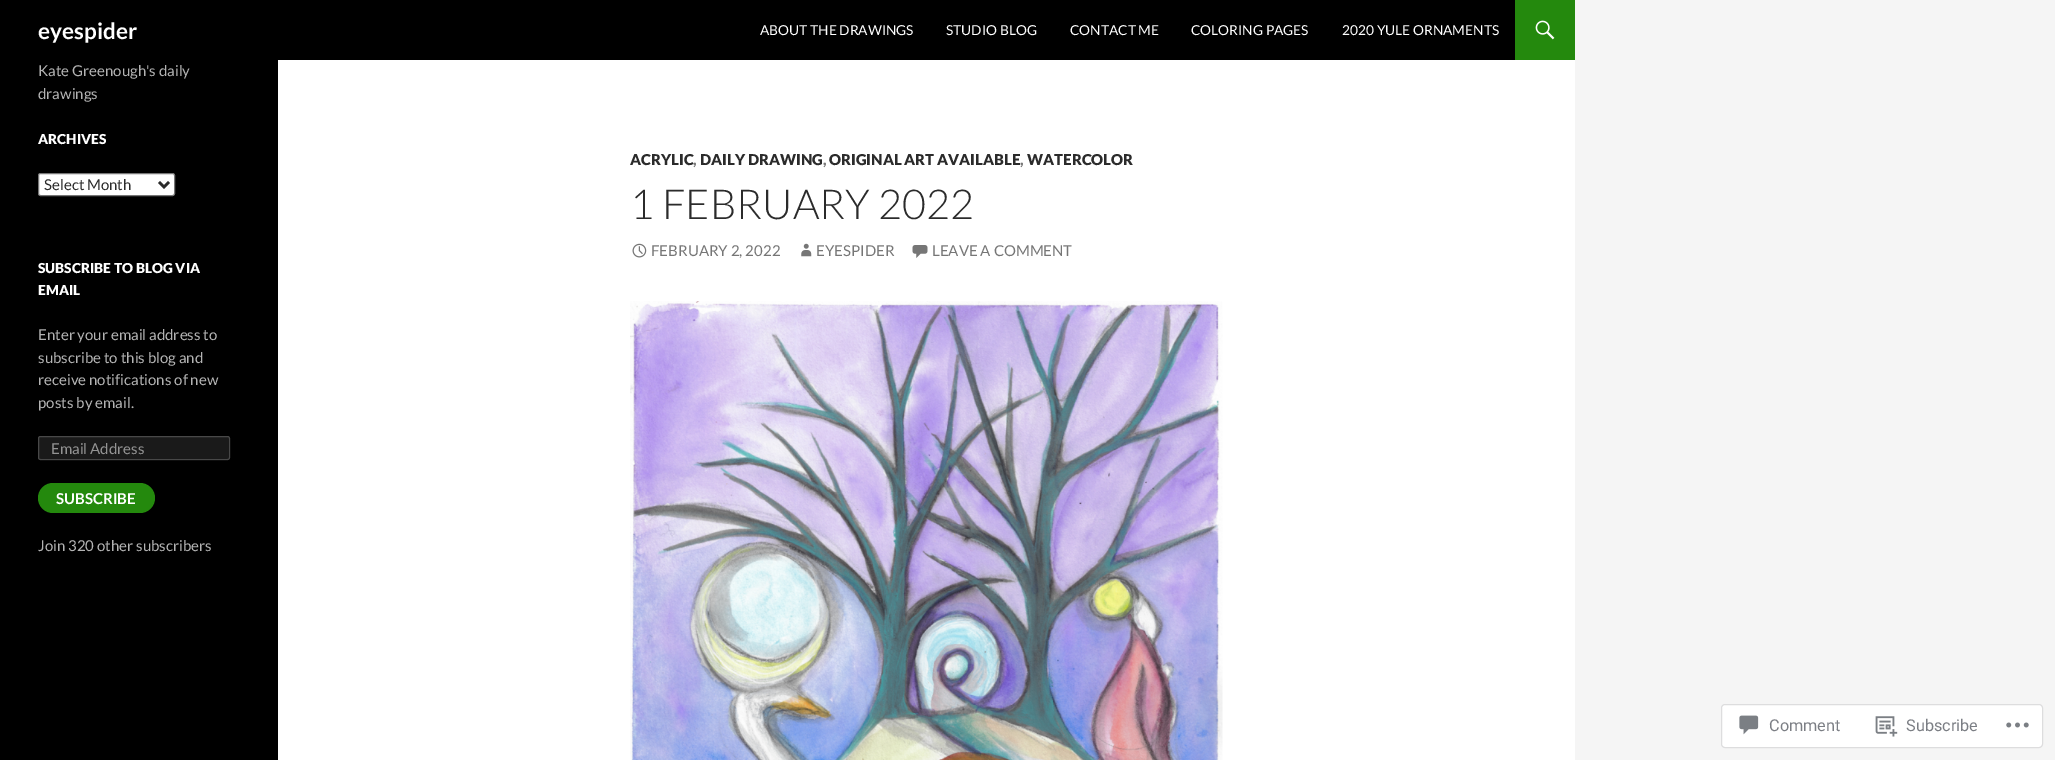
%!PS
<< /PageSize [2055 760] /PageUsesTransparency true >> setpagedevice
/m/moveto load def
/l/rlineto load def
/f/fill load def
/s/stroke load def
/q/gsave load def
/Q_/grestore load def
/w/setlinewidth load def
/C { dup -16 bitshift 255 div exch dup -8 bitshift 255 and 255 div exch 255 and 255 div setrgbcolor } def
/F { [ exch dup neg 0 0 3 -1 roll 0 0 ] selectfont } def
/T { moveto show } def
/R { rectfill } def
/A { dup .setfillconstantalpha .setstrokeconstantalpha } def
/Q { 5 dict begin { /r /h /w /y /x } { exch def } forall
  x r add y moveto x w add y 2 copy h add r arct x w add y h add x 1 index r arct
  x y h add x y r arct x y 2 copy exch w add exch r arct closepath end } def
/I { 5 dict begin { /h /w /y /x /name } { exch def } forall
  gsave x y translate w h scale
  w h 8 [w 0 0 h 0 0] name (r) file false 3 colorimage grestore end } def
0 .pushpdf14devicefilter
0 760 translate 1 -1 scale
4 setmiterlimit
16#F5F5F5 C
0 0 2055 760 R
16#FFFFFF C
278 60 1297 700 R
16#000000 C
0 0 1515 60 R
/Lato-Bold 22.5 F
16#FFFFFF C
(eyespider) 38 39 T
/Lato-Regular 13.75 F
(ABOUT THE DRAWINGS) 760 35 T
(STUDIO BLOG) 946 35 T
(CONTACT ME) 1070 35 T
(COLORING PAGES) 1191 35 T
(2020 YULE ORNAMENTS) 1342 35 T
16#24890D C
1515 0 60 60 R
(1.rgb) 1535 20 20 20 I
16#000000 C
0 60 278 700 R
/Lato-Regular 15 F
16#B3B3B3 C
(Kate Greenough's daily) 38 76 T
(drawings) 38 99 T
/Lato-Black 13.75 F
16#FFFFFF C
(ARCHIVES) 38 144 T
38.5 173.5 136 22 2 Q q f Q_
16#767676 C
s
16#2B2B2B C
2.5 w
159 182 m 5 5 l 5 -5 l s
/Lato-Regular 15 F
(Select Month) 44 190 T
/Lato-Black 13.75 F
16#FFFFFF C
(SUBSCRIBE TO BLOG VIA) 38 273 T
(EMAIL) 38 295 T
/Lato-Regular 15 F
16#B3B3B3 C
(Enter your email address to) 38 340 T
(subscribe to this blog and) 38 363 T
(receive notifications of new) 38 385 T
(posts by email.) 38 408 T
16#1A1A1A C
38 436 192 24 2.5 Q f
0.2 A
16#FFFFFF C
1 w
38.5 436.5 191 23 2 Q s
1 A
16#939393 C
(Email Address) 51 454 T
16#24890D C
38 483 117 30 15 Q f
/Lato-Bold 15 F
16#FFFFFF C
(SUBSCRIBE) 56 504 T
/Lato-Regular 15 F
16#B3B3B3 C
(Join 320 other subscribers) 38 551 T
/Lato-Black 15 F
16#2B2B2B C
(ACRYLIC) 630 165 T
16#767676 C
(,) 693 165 T
16#2B2B2B C
(DAILY DRAWING) 700 165 T
16#767676 C
(,) 823 165 T
16#2B2B2B C
(ORIGINAL ART AVAILABLE) 829 165 T
16#767676 C
(,) 1020 165 T
16#2B2B2B C
(WATERCOLOR) 1027 165 T
/Lato-Light 41.25 F
(1 FEBRUARY 2022) 630 219 T
(2.rgb) 632 243 15 15 I
/Lato-Regular 15 F
16#767676 C
(FEBRUARY 2, 2022) 651 256 T
(3.rgb) 801 243 11 14 I
(EYESPIDER) 816 256 T
(4.rgb) 912 245 16 13 I
(LEAVE A COMMENT) 932 256 T
(5.rgb) 630 301 593 459 I
16#FFFFFF C
1721.5 704.5 321 43 3.5 Q q f Q_
16#DDDDDE C
s
(6.rgb) 1739 715 20 20 I
/Roboto-Regular 16.25 F
16#7B7E84 C
(Comment) 1769 731 T
(7.rgb) 1875 716 23 21 I
(Subscribe) 1906 731 T
(8.rgb) 2006 722 23 6 I
.poppdf14devicefilter showpage
